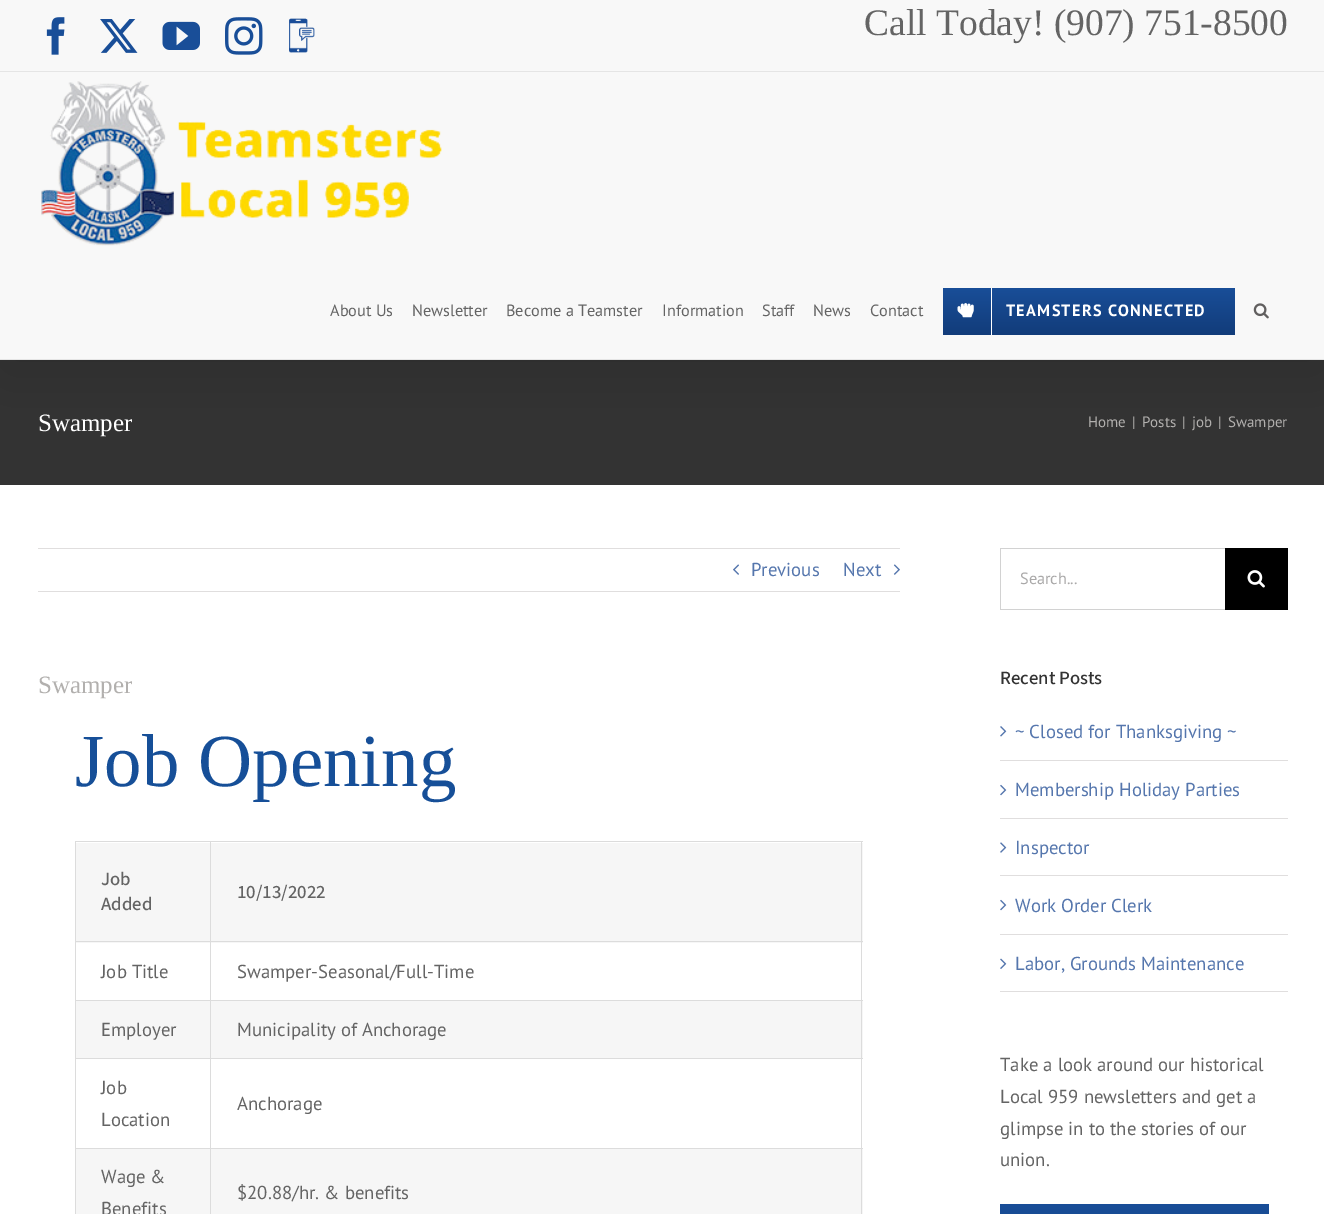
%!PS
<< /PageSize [1324 1214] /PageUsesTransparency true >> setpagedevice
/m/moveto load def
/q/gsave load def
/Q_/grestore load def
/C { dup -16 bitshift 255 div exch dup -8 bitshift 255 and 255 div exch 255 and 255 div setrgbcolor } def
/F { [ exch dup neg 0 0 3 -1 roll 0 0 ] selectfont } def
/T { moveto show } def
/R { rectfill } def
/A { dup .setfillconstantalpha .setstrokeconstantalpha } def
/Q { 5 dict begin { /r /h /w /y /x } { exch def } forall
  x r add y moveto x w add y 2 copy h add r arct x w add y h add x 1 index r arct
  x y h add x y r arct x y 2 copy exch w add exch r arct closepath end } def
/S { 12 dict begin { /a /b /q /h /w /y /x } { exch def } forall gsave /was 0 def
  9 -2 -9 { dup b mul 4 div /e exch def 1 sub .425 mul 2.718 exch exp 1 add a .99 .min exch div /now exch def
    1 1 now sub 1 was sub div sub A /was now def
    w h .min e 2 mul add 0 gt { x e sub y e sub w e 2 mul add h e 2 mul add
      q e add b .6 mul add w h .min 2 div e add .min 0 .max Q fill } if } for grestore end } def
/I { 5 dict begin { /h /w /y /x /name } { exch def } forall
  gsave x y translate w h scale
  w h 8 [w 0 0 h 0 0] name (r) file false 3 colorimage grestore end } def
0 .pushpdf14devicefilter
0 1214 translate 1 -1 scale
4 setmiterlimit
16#FFFFFF C
0 0 1324 1214 R
16#333333 C
0 360 1324 125 R
16#000000 C
3 15 1320 355 0 31 .14 S
16#F8F8F8 C
0 0 1324 359 R
16#E5E5E5 C
0 71 1324 1 R
(1.rgb) 46 17 19 38 I
(2.rgb) 100 19 38 34 I
(3.rgb) 162 21 38 29 I
(4.rgb) 225 17 38 38 I
(5.rgb) 289 18 26 35 I
/LiberationSerif-Regular 37.5 F
16#646464 C
(Call Today! \(907\) 751-8500) 864 35 T
16#E5E5E5 C
0 359 1324 1 R
(6.rgb) 41 81 401 165 I
/PTSans-Regular 16.25 F
16#646464 C
(About Us) 330 316 T
(Newsletter) 412 316 T
(Become a Teamster) 506 316 T
(Information) 662 316 T
(Staff) 762 316 T
(News) 813 316 T
(Contact) 870 316 T
q 943 288 292 47 2.5 Q clip newpath
<< /ShadingType 2 /ColorSpace /DeviceRGB /Coords [1089 288 1089 335] /Extend [true true] /Function << /FunctionType 2 /Domain [0 1] /C0 [.098 .306 .596] /C1 [.071 .235 .478] /N 1 >> >> shfill Q_
16#FFFFFF C
991 288 1 47 R
(7.rgb) 957 303 17 15 I
/PTSans-Bold 16.25 F
1006 316 m 1.25 0 (TEAMSTERS CONNECTED) ashow
(8.rgb) 1253 303 16 16 I
/LiberationSerif-Regular 25 F
(Swamper) 38 431 T
/PTSans-Regular 15 F
16#B2B0AE C
(Home) 1088 427 T
(|) 1132 427 T
(Posts) 1142 427 T
(|) 1182 427 T
(job) 1192 427 T
(|) 1218 427 T
(Swamper) 1228 427 T
16#E0DEDE C
38 548 862 1 R
38 591 862 1 R
(9.rgb) 733 564 6 11 I
/PTSans-Regular 18.75 F
16#5576AD C
(Previous) 751 576 T
(Next) 843 576 T
(10.rgb) 893 564 7 11 I
/LiberationSerif-Regular 25 F
16#B2B0AE C
(Swamper) 38 693 T
/LiberationSerif-Regular 75 F
16#164F98 C
(Job Opening) 75 786 T
16#DCDCDC C
75 841 788 1 R
16#F6F6F6 C
211 843 652 100 R
76 1001 787 57 R
76 1149 787 65 R
16#DCDCDC C
861 841 1 373 R
75 841 1 373 R
16#F6F6F6 C
76 843 134 100 R
/SourceSans3-ExtraLight 18.75 F
16#646464 C
(Job) 101 885 T
(Added) 101 910 T
16#DCDCDC C
210 941 653 1 R
210 1000 653 1 R
210 1058 653 1 R
210 1148 653 1 R
210 1148 1 66 R
75 1148 136 1 R
210 1058 1 91 R
75 1058 136 1 R
210 1000 1 59 R
75 1000 136 1 R
210 941 1 60 R
75 941 136 1 R
210 841 1 102 R
16#646464 C
(10/13/2022) 237 898 T
/PTSans-Regular 18.75 F
(Job Title) 101 978 T
(Swamper-Seasonal/Full-Time) 237 978 T
(Employer) 101 1036 T
(Municipality of Anchorage) 237 1036 T
(Job) 101 1094 T
(Location) 101 1126 T
(Anchorage) 237 1110 T
(Wage &) 101 1183 T
(Benefits) 101 1215 T
($20.88/hr. & benefits) 237 1199 T
16#D2D2D2 C
1000 548 225 1 R
1000 609 225 1 R
1000 548 1 62 R
/PTSans-Regular 16.25 F
16#AAA9A9 C
(Search...) 1020 584 T
16#000000 C
1225 548 63 62 R
(11.rgb) 1247 570 18 18 I
/SourceSans3-ExtraLight 18.75 F
16#333333 C
(Recent Posts) 1000 684 T
16#E0DEDE C
1000 760 288 1 R
(12.rgb) 1000 726 7 11 I
/PTSans-Regular 18.75 F
16#5576AD C
(~ Closed for Thanksgiving ~) 1015 738 T
16#E0DEDE C
1000 818 288 1 R
(13.rgb) 1000 784 7 12 I
16#5576AD C
(Membership Holiday Parties) 1015 796 T
16#E0DEDE C
1000 875 288 1 R
(14.rgb) 1000 842 7 11 I
16#5576AD C
(Inspector) 1015 854 T
16#E0DEDE C
1000 934 288 1 R
(13.rgb) 1000 899 7 12 I
16#5576AD C
(Work Order Clerk) 1015 912 T
16#E0DEDE C
1000 991 288 1 R
(15.rgb) 1000 958 7 11 I
16#5576AD C
(Labor, Grounds Maintenance) 1015 970 T
16#646464 C
(Take a look around our historical) 1000 1071 T
(Local 959 newsletters and get a) 1000 1103 T
(glimpse in to the stories of our) 1000 1135 T
(union.) 1000 1166 T
q 1000 1204 269 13 2.5 Q clip newpath
<< /ShadingType 2 /ColorSpace /DeviceRGB /Coords [1134 1204 1134 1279] /Extend [true true] /Function << /FunctionType 2 /Domain [0 1] /C0 [.098 .306 .596] /C1 [.071 .235 .478] /N 1 >> >> shfill Q_
.poppdf14devicefilter showpage
